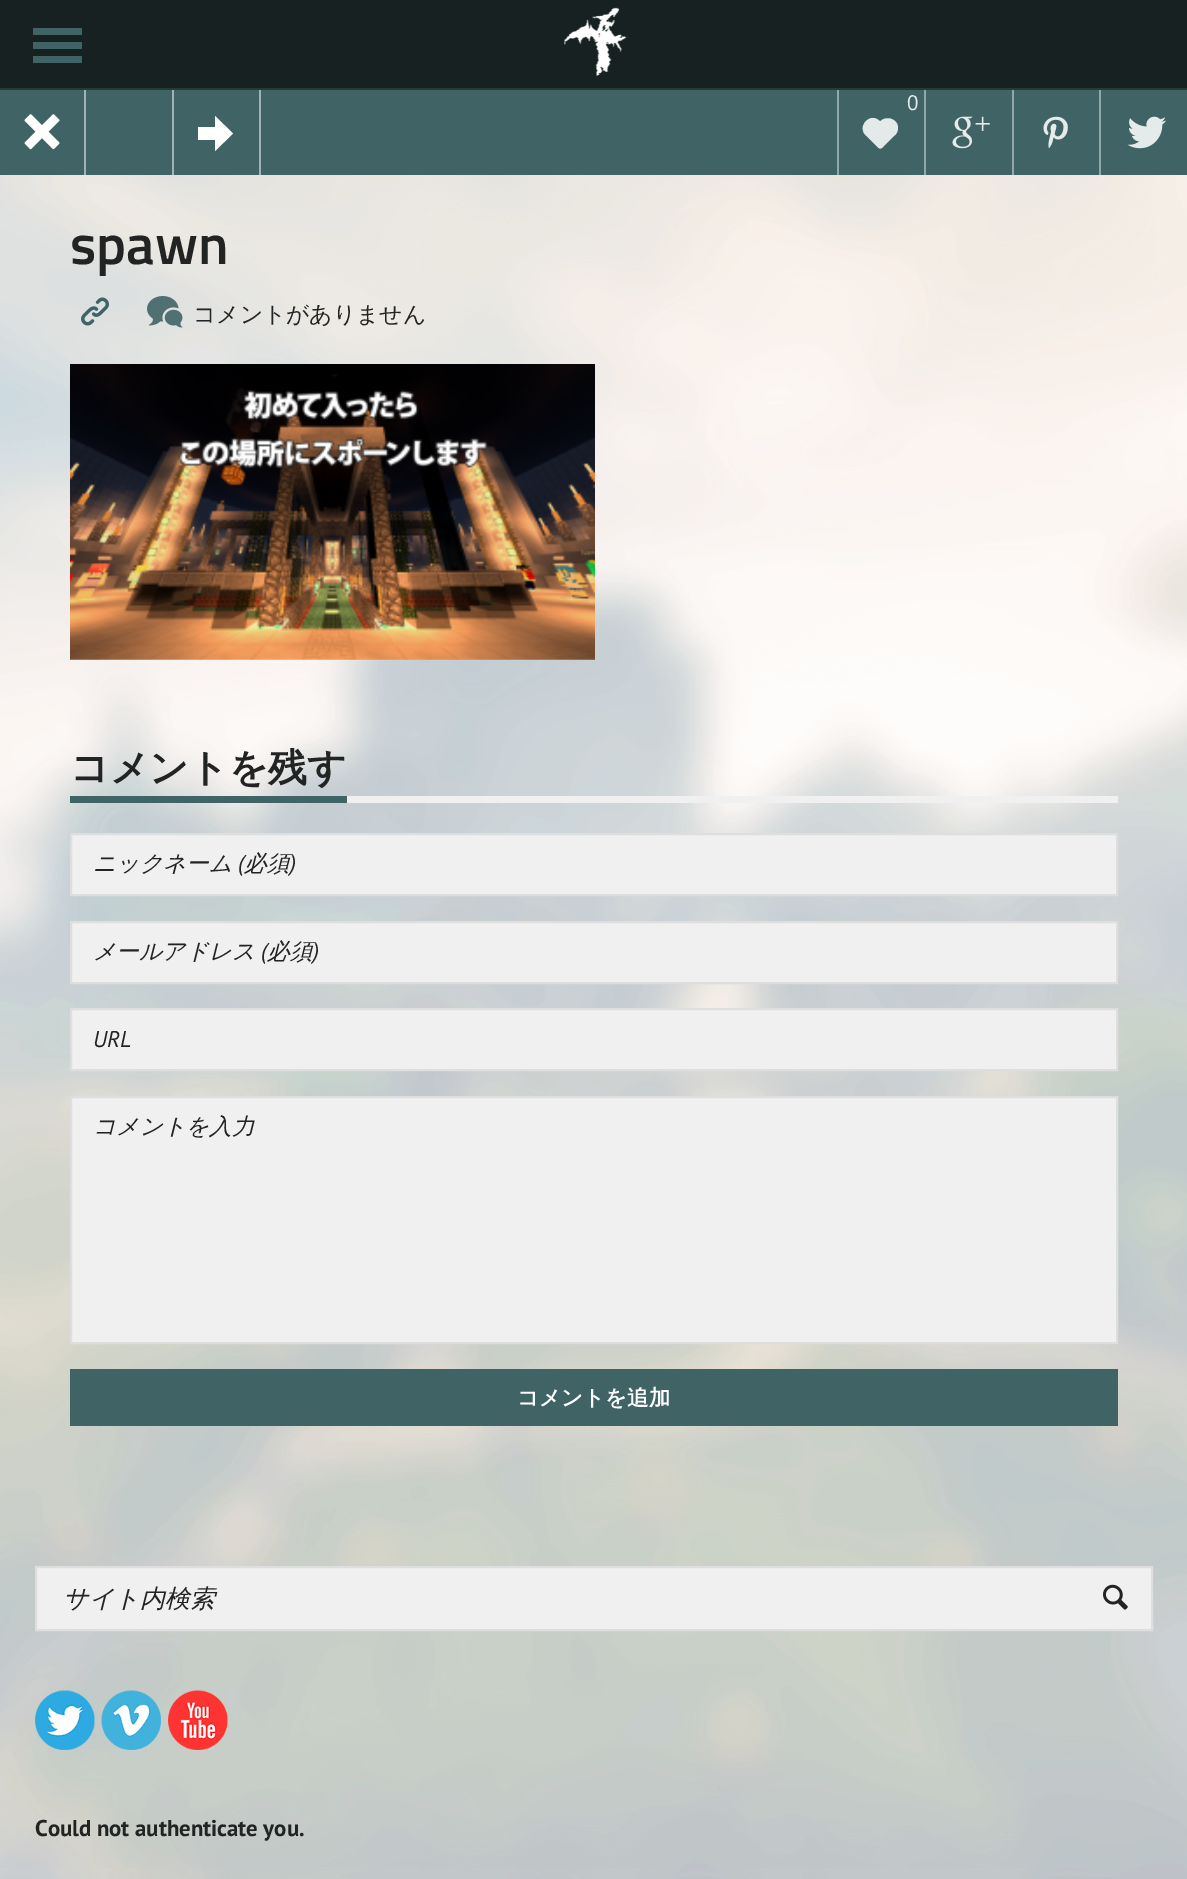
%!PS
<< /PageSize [1187 1879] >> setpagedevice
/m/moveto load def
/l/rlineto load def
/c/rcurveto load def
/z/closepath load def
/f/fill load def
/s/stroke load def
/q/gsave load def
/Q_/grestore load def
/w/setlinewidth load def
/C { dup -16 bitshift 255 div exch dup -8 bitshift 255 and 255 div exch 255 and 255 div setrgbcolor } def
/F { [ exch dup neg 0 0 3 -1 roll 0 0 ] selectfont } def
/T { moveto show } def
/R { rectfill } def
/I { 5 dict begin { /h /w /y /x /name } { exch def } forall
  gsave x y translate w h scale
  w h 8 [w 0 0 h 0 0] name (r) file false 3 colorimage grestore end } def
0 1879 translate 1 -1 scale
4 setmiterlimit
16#FFFFFF C
0 0 1187 1879 R
16#172121 C
0 0 1187 88 R
16#406466 C
0 90 1187 85 R
16#A0B2B3 C
84 88 2 87 R
172 88 2 87 R
259 88 2 87 R
16#92A7A8 C
837 88 2 87 R
924 88 2 87 R
1012 88 2 87 R
1099 88 2 87 R
16#263B38 C
0 88 1187 2 R
16#406466 C
33 28 49 7 R
33 42 49 7 R
33 56 49 7 R
(1.rgb) 564 7 63 70 I
(2.rgb) 24 114 36 36 I
16#FFFFFF C
233 133.5 m -18 17.5 l 0 -11 l -17 0 l 0 -13 l 17 0 l 0 -11 l z f
/PTSans-Regular 21 F
16#E4E9EA C
(0) 907 110 T
898 128 m 0 -9 -11.5 -13 -18 -6.5 c -9 -10.5 -24 5 -14 14 c 9 9 l 5.5 5.5 5 5.5 10.5 0 c 9 -9 l 2 -1.5 3.5 -4.5 3.5 -7.5 c z f
(3.rgb) 952 116 38 33 I
(4.rgb) 1043 116 25 33 I
(5.rgb) 1127 116 39 33 I
(13.rgb) 0 175 1187 1704 I
/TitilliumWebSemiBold-SemiBold 56 F
16#222424 C
(spawn) 70 264 T
(6.rgb) 81 297 28 29 I
(7.rgb) 147 296 36 32 I
/WenQuanYiZenHei-Medium 22.75 F
(コメントがありません) 193 322 T
(8.rgb) 70 364 525 296 I
16#406466 C
70 796 277 7 R
/WenQuanYiZenHei-Bold 38.75 F
16#222424 C
(コメントを残す) 70 781 T
16#F0F0F0 C
347 796 771 7 R
71 834 m 1046 0 l 0 61 l -1046 0 l z q f Q_
16#DEDEDE C
2 w
s
/WenQuanYiZenHei-MediumItalic 22.75 F
16#222424 C
(ニックネーム) 93 871 T
/PTSans-Italic 22.75 F
(\() 238 871 T
/WenQuanYiZenHei-MediumItalic 22.75 F
(必須) 244 871 T
/PTSans-Italic 22.75 F
(\)) 290 871 T
16#F0F0F0 C
71 922 m 1046 0 l 0 61 l -1046 0 l z q f Q_
16#DEDEDE C
s
/WenQuanYiZenHei-MediumItalic 22.75 F
16#222424 C
(メールアドレス) 93 959 T
/PTSans-Italic 22.75 F
(\() 261 959 T
/WenQuanYiZenHei-MediumItalic 22.75 F
(必須) 267 959 T
/PTSans-Italic 22.75 F
(\)) 313 959 T
16#F0F0F0 C
71 1009 m 1046 0 l 0 61 l -1046 0 l z q f Q_
16#DEDEDE C
s
16#222424 C
(URL) 93 1047 T
16#F0F0F0 C
71 1097 m 1046 0 l 0 246 l -1046 0 l z q f Q_
16#DEDEDE C
s
/WenQuanYiZenHei-MediumItalic 22.75 F
16#222424 C
(コメントを入力) 93 1134 T
16#406466 C
70 1369 1048 57 R
/WenQuanYiZenHei-Bold 21.5 F
16#FFFFFF C
(コメントを追加) 517 1405 T
16#F0F0F0 C
36 1567 m 1116 0 l 0 63 l -1116 0 l z q f Q_
16#DEDEDE C
s
/WenQuanYiZenHei-MediumItalic 25 F
16#222424 C
(サイト内検索) 63 1607 T
(9.rgb) 1103 1584 25 26 I
(10.rgb) 35 1690 60 60 I
(11.rgb) 101 1690 60 60 I
(12.rgb) 168 1690 60 60 I
/PTSans-Bold 22.75 F
(Could not authenticate you.) 35 1836 T
showpage
